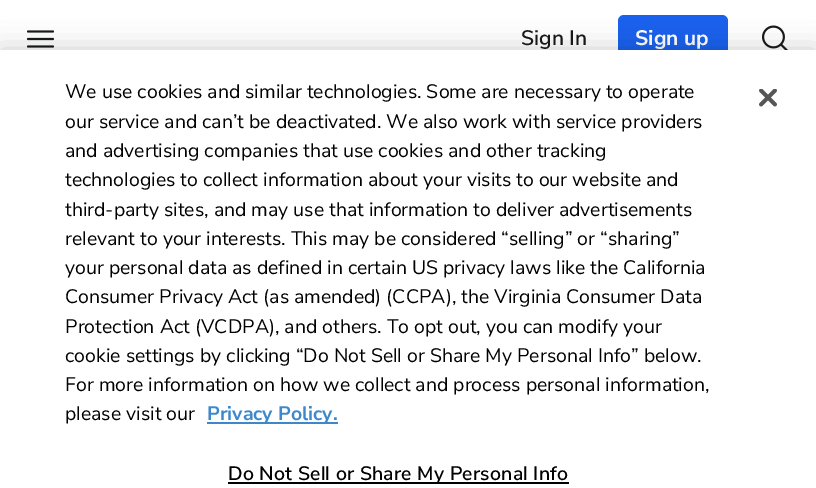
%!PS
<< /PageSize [816 488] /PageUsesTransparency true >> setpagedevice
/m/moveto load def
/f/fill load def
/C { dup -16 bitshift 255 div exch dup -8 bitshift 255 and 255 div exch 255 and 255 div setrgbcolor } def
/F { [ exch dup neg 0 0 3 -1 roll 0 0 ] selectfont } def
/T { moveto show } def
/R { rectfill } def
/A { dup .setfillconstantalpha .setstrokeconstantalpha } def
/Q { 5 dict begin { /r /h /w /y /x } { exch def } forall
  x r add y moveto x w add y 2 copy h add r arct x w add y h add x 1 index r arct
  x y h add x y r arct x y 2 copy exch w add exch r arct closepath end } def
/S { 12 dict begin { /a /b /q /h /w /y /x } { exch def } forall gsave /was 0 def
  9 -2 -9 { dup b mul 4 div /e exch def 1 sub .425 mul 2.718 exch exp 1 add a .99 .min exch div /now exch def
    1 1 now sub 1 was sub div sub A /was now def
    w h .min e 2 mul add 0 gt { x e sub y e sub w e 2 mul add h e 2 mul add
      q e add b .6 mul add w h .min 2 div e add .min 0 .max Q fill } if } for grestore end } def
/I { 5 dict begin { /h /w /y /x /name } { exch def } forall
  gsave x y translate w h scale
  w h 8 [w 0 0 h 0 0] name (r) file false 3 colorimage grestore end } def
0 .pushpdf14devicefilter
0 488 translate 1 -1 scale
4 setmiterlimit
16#FFFFFF C
0 0 816 488 R
(1.rgb) 27 30 27 18 I
/NunitoSans-SemiBold 21 F
16#181919 C
(Sign In) 521 45 T
16#1A61ED C
618 15 110 48 6 Q f
/NunitoSans-Bold 21 F
16#FFFFFF C
(Sign up) 635 45 T
(2.rgb) 762 25 26 25 I
16#000000 C
0 50 816 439 0 13.5 .2 S
16#FFFFFF C
0 50 816 438 R
/NunitoSans-Regular 19.5 F
16#000000 C
(We use cookies and similar technologies. Some are necessary to operate) 65 98 T
(our service and can’t be deactivated. We also work with service providers) 65 128 T
(and advertising companies that use cookies and other tracking) 65 157 T
(technologies to collect information about your visits to our website and) 65 186 T
(third-party sites, and may use that information to deliver advertisements) 65 216 T
(relevant to your interests. This may be considered “selling” or “sharing”) 65 245 T
(your personal data as defined in certain US privacy laws like the California) 65 274 T
(Consumer Privacy Act \(as amended\) \(CCPA\), the Virginia Consumer Data) 65 303 T
(Protection Act \(VCDPA\), and others. To opt out, you can modify your) 65 333 T
(cookie settings by clicking “Do Not Sell or Share My Personal Info” below.) 65 362 T
(For more information on how we collect and process personal information,) 65 391 T
(please visit our) 65 420 T
16#3D87CB C
207 422 131 2 R
/NunitoSans-Bold 19.5 F
(Privacy Policy.) 207 420 T
16#000000 C
228 482 341 2 R
/NunitoSans-SemiBold 19.5 F
228 480 m .2 0 (Do Not Sell or Share My Personal Info) ashow
(3.rgb) 759 89 18 18 I
.poppdf14devicefilter showpage
